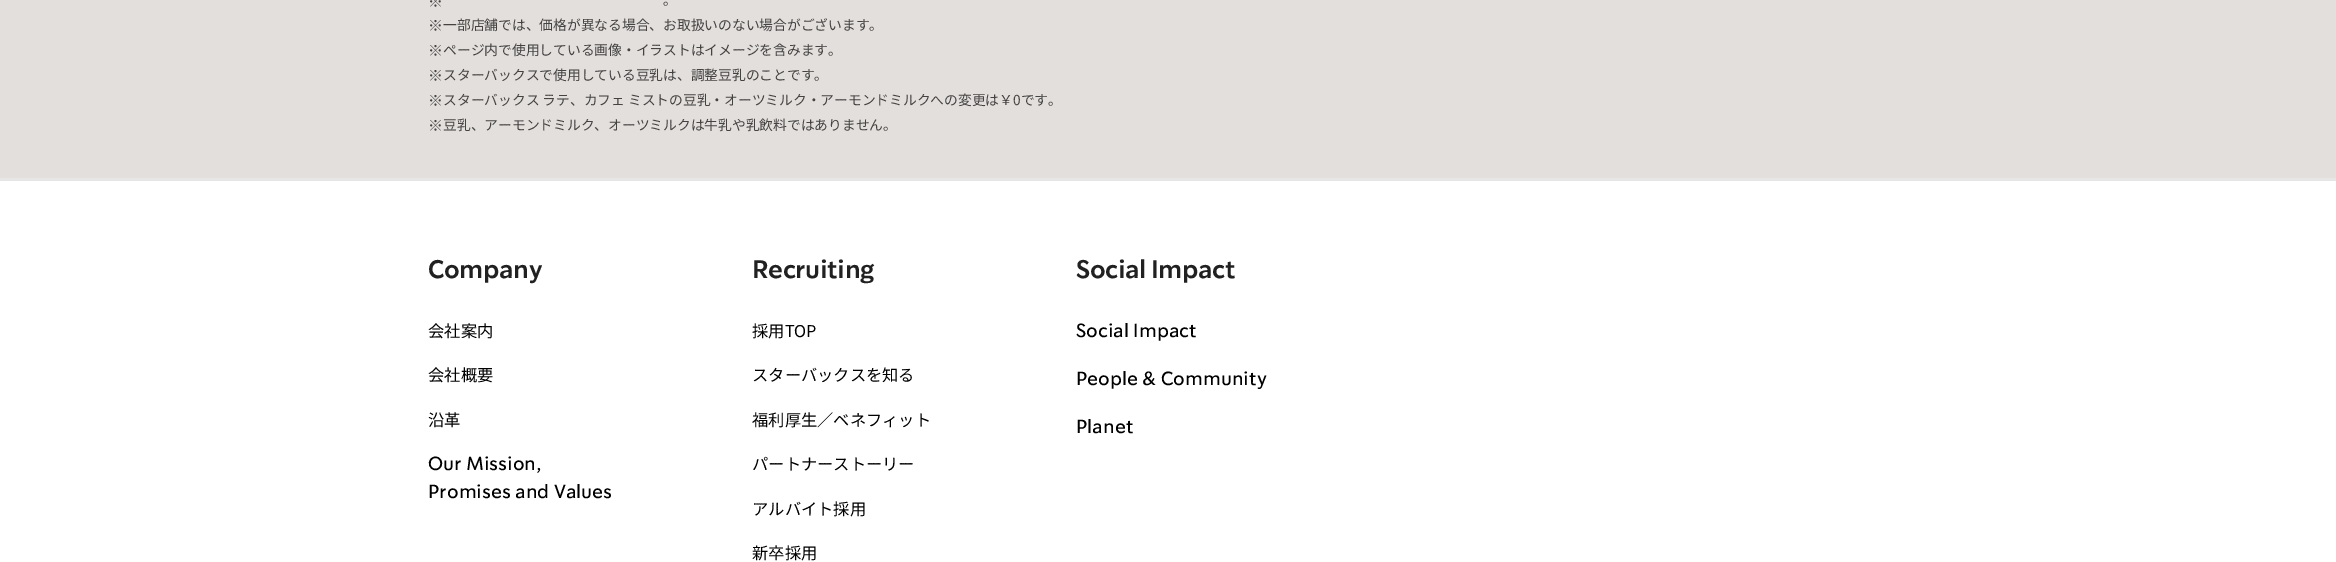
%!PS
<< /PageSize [2336 562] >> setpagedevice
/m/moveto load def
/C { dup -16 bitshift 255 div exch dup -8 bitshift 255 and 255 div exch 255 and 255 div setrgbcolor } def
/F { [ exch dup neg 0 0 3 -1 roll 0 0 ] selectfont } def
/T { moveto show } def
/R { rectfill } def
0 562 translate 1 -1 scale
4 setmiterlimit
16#FFFFFF C
0 0 2336 562 R
16#E2DFDD C
0 0 2336 178 R
/NotoSansJP-Regular 15 F
16#444342 C
(※) 428 7 T
/NotoSansJP-Regular 13.75 F
(。) 663 5 T
/NotoSansJP-Regular 15 F
(※) 428 31 T
/NotoSansJP-Regular 13.75 F
(一部店舗では、価格が異なる場合、お取扱いのない場合がございます。) 443 30 T
/NotoSansJP-Regular 15 F
(※) 428 56 T
/NotoSansJP-Regular 13.75 F
(ページ内で使用している画像・イラストはイメージを含みます。) 443 55 T
/NotoSansJP-Regular 15 F
(※) 428 81 T
/NotoSansJP-Regular 13.75 F
(スターバックスで使用している豆乳は、調整豆乳のことです。) 443 80 T
/NotoSansJP-Regular 15 F
(※) 428 106 T
/NotoSansJP-Regular 13.75 F
(スターバックス ラテ、カフェ ミストの豆乳・オーツミルク・アーモンドミルクへの変更は￥0です。) 443 105 T
/NotoSansJP-Regular 15 F
(※) 428 131 T
/NotoSansJP-Regular 13.75 F
(豆乳、アーモンドミルク、オーツミルクは牛乳や乳飲料ではありません。) 443 130 T
16#E6E6E6 C
0 178 2336 3 R
/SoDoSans-SemiBold 25 F
16#212121 C
428 278 m -.4 0 (Company) ashow
/NotoSansJP-Regular 16.25 F
16#000000 C
(会社案内) 428 337 T
(会社概要) 428 381 T
(沿革) 428 426 T
/SoDoSans-Regular 18.75 F
(Our Mission,) 428 470 T
(Promises and Values) 428 498 T
/SoDoSans-SemiBold 25 F
16#212121 C
752 278 m -.4 0 (Recruiting) ashow
/NotoSansJP-Regular 16.25 F
16#000000 C
(採用TOP) 752 337 T
(スターバックスを知る) 752 381 T
(福利厚生／ベネフィット) 752 426 T
(パートナーストーリー) 752 470 T
(アルバイト採用) 752 515 T
(新卒採用) 752 559 T
/SoDoSans-SemiBold 25 F
16#212121 C
1076 278 m -.4 0 (Social Impact) ashow
/SoDoSans-Regular 18.75 F
16#000000 C
(Social Impact) 1076 337 T
(People & Community) 1076 385 T
(Planet) 1076 433 T
showpage
